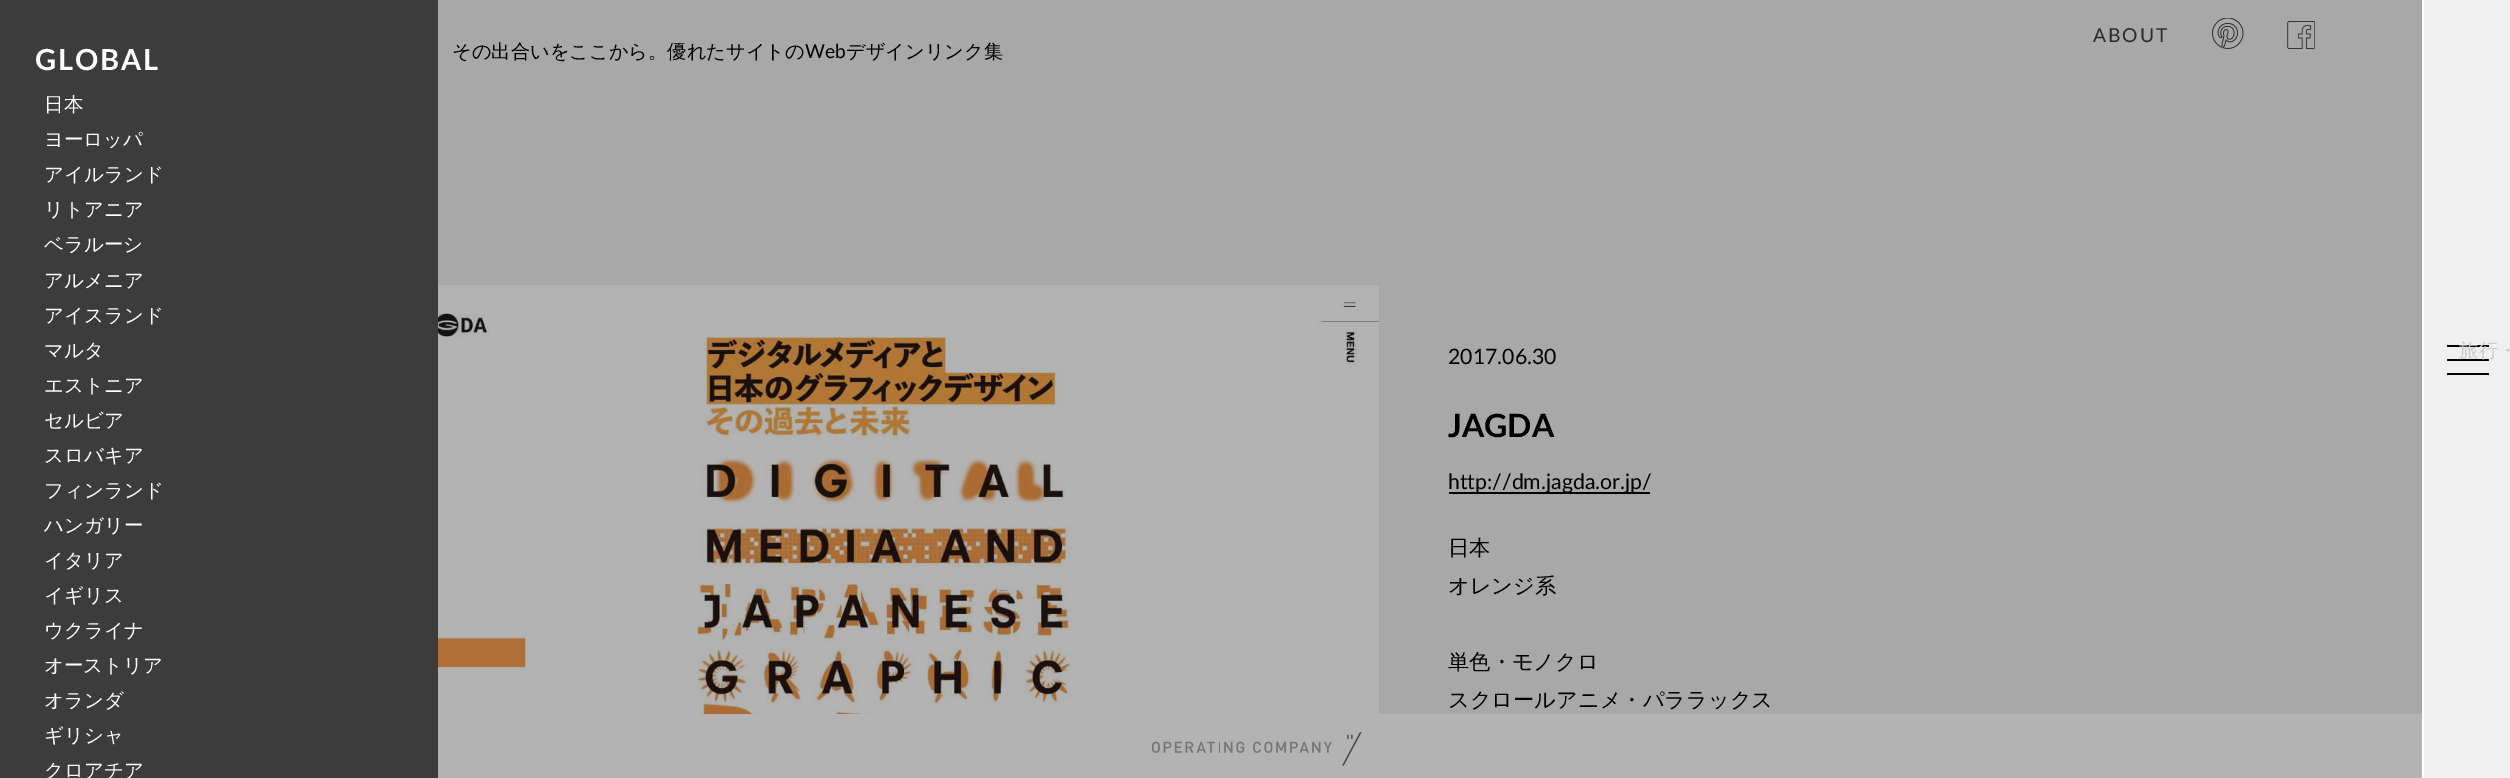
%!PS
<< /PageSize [2510 778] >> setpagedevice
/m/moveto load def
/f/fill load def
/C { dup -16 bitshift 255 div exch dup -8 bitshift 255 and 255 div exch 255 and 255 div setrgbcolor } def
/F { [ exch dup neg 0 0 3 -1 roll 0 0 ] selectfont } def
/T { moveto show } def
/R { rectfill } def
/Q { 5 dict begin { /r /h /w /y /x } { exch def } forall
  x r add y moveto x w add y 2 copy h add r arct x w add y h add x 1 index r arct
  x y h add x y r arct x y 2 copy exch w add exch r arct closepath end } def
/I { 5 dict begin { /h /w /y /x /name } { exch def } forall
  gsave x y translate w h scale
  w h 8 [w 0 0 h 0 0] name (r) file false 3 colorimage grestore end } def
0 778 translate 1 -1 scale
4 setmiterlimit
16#A8A8A8 C
0 0 2510 778 R
16#3C3C3C C
0 0 438 778 R
/Lato-Bold 29 F
16#FFFFFF C
35 70 m 1.75 0 (GLOBAL) ashow
/WenQuanYiZenHei-Medium 19.5 F
(日本) 44 111 T
(ヨーロッパ) 44 146 T
(アイルランド) 44 181 T
(リトアニア) 44 216 T
(ベラルーシ) 44 251 T
(アルメニア) 44 287 T
(アイスランド) 44 322 T
(マルタ) 44 357 T
(エストニア) 44 392 T
(セルビア) 44 427 T
(スロバキア) 44 462 T
(フィンランド) 44 497 T
(ハンガリー) 44 532 T
(イタリア) 44 567 T
(イギリス) 44 602 T
(ウクライナ) 44 637 T
(オーストリア) 44 672 T
(オランダ) 44 707 T
(ギリシャ) 44 742 T
(クロアチア) 44 777 T
/Lato-Regular 19.25 F
16#2B2B2B C
2093 42 m 2 0 (ABOUT) ashow
(1.rgb) 2212 18 32 31 I
(2.rgb) 2287 21 28 28 I
/WenQuanYiZenHei-Medium 19.25 F
16#000000 C
(その出合いをここから。優れたサイトの) 452 58 T
/Lato-Regular 19.25 F
(Web) 805 58 T
/WenQuanYiZenHei-Medium 19.25 F
(デザインリンク集) 846 58 T
16#F0F0F0 C
2424 0 86 778 R
16#FFFFFF C
2422 0 2 778 R
16#000000 C
2447 345 42 2 1 Q f
2447 359 42 2 1 Q f
2447 373 42 2 1 Q f
(3.rgb) 438 285 941 429 I
/Lato-Regular 21.25 F
(2017.06.30) 1448 364 T
/Lato-Bold 32 F
(JAGDA) 1448 437 T
1449 492 201 2 R
/Lato-Regular 21.25 F
(http://dm.jagda.or.jp/) 1448 489 T
/WenQuanYiZenHei-Medium 21.25 F
(日本) 1448 555 T
(オレンジ系) 1448 593 T
(単色・モノクロ) 1448 669 T
(スクロールアニメ・パララックス) 1448 707 T
/WenQuanYiZenHei-Medium 19.5 F
16#CCCCCC C
(旅行・) 2459 357 T
16#B3B3B3 C
438 714 1984 64 R
(4.rgb) 1152 732 210 34 I
showpage
